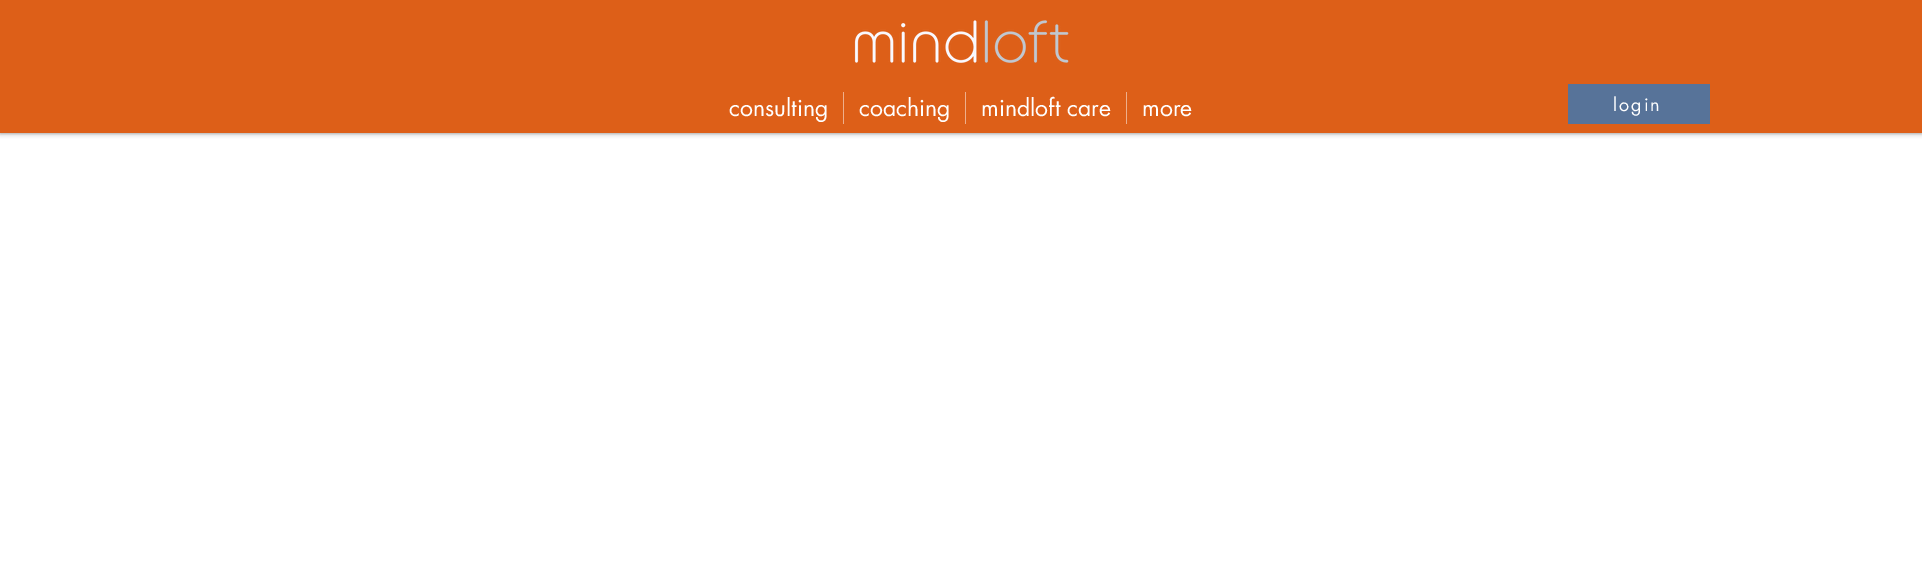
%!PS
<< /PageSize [1922 580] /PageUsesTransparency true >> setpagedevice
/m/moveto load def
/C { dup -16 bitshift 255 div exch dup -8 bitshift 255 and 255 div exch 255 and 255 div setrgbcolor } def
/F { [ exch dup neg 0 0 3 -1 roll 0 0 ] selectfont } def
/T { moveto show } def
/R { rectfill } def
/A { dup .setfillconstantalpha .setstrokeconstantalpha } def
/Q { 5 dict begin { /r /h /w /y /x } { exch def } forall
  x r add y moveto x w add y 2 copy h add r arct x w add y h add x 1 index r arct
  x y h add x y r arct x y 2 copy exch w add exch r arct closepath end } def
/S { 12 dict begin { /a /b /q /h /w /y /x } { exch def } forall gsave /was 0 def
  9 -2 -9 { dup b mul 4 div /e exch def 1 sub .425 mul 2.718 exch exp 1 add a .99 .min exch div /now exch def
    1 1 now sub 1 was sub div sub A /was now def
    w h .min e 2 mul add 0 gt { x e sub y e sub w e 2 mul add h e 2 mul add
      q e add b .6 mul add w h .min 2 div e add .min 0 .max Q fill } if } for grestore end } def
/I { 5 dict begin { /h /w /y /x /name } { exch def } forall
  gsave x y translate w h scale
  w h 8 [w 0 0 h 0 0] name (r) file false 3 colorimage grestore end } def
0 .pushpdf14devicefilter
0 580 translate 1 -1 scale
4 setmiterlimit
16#FFFFFF C
0 0 1922 580 R
16#000000 C
0 0 1922 133 0 2.5 .5 S
16#DD5F18 C
0 0 1922 133 R
(1.rgb) 854 20 215 43 I
/futura-Regular 23 F
16#FFFFFF C
(consulting) 729 116 T
16#EEAF8C C
843 92 1 32 R
16#FFFFFF C
(coaching) 859 116 T
16#EEAF8C C
965 92 1 32 R
16#FFFFFF C
(mindloft care) 981 116 T
16#EEAF8C C
1126 92 1 32 R
16#FFFFFF C
(more) 1142 116 T
16#577399 C
1568 84 142 40 R
/futura-Regular 18 F
16#FFFFFF C
1613 111 m 2 0 (login) ashow
.poppdf14devicefilter showpage
